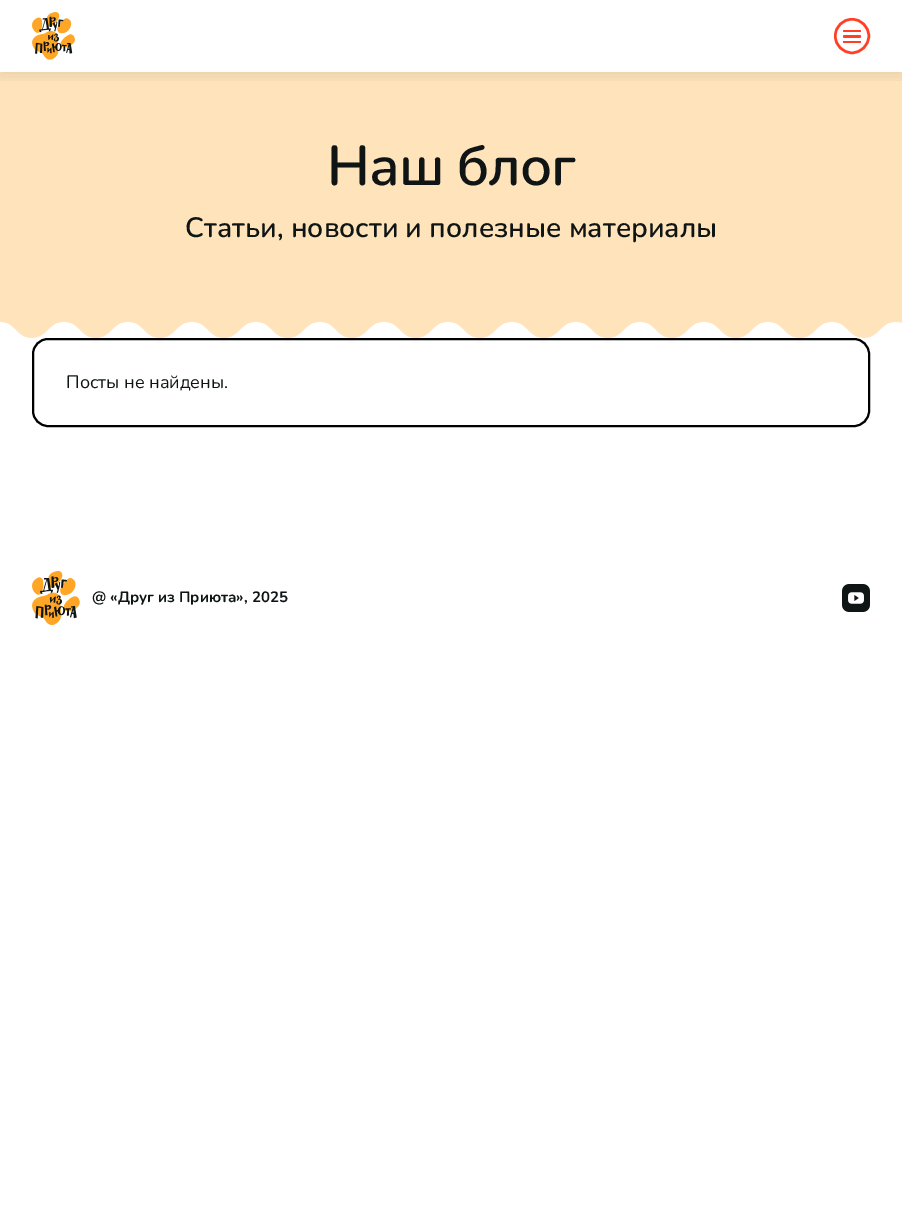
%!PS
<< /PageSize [902 1205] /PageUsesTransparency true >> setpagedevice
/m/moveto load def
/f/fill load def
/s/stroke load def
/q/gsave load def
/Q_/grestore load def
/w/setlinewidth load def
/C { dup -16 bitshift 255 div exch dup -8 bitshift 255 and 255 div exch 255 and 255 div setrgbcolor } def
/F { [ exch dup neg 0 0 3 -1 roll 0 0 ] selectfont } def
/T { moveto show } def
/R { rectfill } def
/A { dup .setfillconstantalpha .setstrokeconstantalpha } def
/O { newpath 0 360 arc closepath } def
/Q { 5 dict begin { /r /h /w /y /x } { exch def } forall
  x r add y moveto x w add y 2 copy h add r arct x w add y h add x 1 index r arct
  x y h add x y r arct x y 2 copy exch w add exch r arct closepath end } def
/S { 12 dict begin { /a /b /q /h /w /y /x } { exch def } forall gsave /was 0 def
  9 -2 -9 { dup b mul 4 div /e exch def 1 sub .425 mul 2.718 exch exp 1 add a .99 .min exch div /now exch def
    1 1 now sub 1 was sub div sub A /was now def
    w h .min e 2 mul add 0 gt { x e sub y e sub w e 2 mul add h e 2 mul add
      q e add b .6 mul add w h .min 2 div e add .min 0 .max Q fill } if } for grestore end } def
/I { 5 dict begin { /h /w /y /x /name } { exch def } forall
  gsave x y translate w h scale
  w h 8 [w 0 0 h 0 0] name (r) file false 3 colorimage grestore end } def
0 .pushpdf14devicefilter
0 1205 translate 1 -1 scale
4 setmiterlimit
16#FFFFFF C
0 0 902 1205 R
16#FFE3BB C
0 72 902 250 R
q
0 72 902 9 rectclip
16#000000 C
0 4 902 72 0 8 .08 S
Q_
(1.rgb) 32 12 43 48 I
16#FF4026 C
2.5 w
852 36 16.75 O s
843 35 18 3 1.5 Q f
843 30 18 2 1 Q f
843 41 18 2 1 Q f
/Nunito-SemiBold 56 F
16#0F1414 C
327 185 m -1 0 (Наш блог) ashow
/Nunito-SemiBold 28 F
(Статьи, новости и полезные материалы) 185 237 T
(2.rgb) 1 322 901 16 I
16#000000 C
2 w
33 339 836 87 15 Q s
/Nunito-Regular 18 F
16#0F1414 C
(Посты не найдены.) 66 388 T
(3.rgb) 32 571 48 54 I
/Nunito-Bold 15 F
(@ «Друг из Приюта», 2025) 92 602 T
(4.rgb) 842 584 28 28 I
.poppdf14devicefilter showpage
